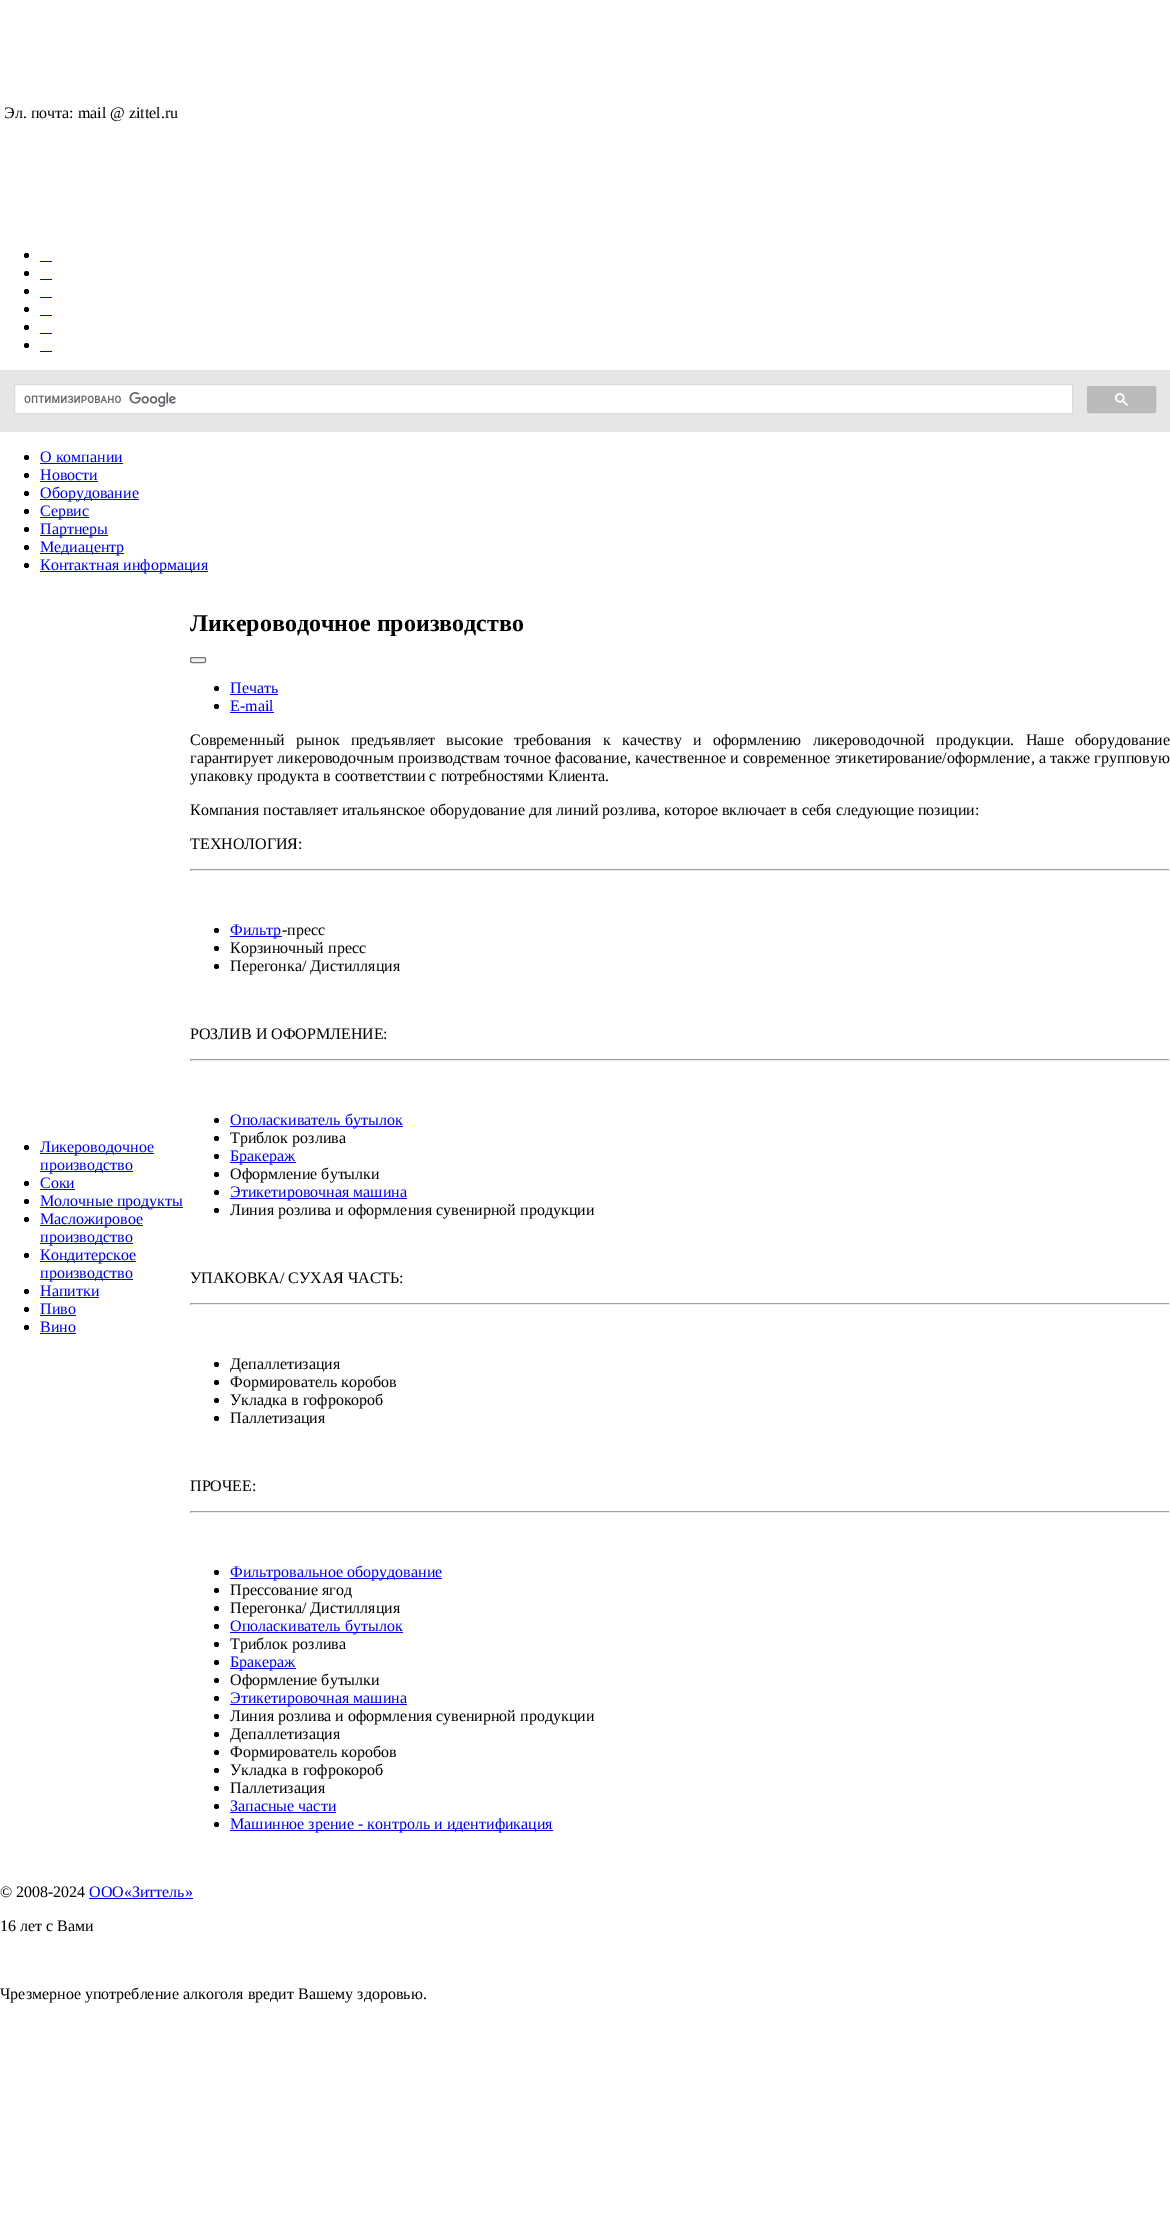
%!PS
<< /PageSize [1170 2213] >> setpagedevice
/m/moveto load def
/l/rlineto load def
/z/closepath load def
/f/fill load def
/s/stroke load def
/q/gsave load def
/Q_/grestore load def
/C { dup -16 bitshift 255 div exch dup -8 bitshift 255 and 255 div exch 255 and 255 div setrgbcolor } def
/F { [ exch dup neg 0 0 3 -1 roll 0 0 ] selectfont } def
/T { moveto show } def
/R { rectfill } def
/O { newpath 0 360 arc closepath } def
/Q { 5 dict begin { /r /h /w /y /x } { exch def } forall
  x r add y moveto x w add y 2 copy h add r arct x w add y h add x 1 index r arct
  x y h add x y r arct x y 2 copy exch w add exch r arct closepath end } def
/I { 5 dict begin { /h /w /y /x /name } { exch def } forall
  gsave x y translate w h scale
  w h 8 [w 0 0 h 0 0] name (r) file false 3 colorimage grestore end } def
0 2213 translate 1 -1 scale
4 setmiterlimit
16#FFFFFF C
0 0 1170 2213 R
/LiberationSerif-Regular 16 F
16#000000 C
(Эл. почта: mail @ zittel.ru) 4 118 T
26.5 255.5 2.5 O f
16#0000EE C
40 261 12 1 R
16#000000 C
26.5 273.5 2.5 O f
16#0000EE C
40 279 12 1 R
16#000000 C
26.5 291.5 2.5 O f
16#0000EE C
40 297 12 1 R
16#000000 C
26.5 309.5 2.5 O f
16#0000EE C
40 315 12 1 R
16#000000 C
26.5 327.5 2.5 O f
16#0000EE C
40 333 12 1 R
16#000000 C
26.5 345.5 2.5 O f
16#0000EE C
40 351 12 1 R
16#E6E6E6 C
0 370 1170 62 R
16#FFFFFF C
14.5 384.5 m 1058 0 l 0 29 l -1058 0 l z q f Q_
16#DBDBDB C
s
(1.rgb) 24 392 152 15 I
16#BABABA C
1087.5 386.5 68 26 1.5 Q q f Q_
s
(2.rgb) 1115 393 13 13 I
16#000000 C
26.5 457.5 2.5 O f
16#0000EE C
(О компании) 40 462 T
40 463 83 1 R
16#000000 C
26.5 475.5 2.5 O f
16#0000EE C
(Новости) 40 480 T
40 481 58 1 R
16#000000 C
26.5 493.5 2.5 O f
16#0000EE C
40 499 99 1 R
(Оборудование) 40 498 T
16#000000 C
26.5 511.5 2.5 O f
16#0000EE C
40 517 49 1 R
(Сервис) 40 516 T
16#000000 C
26.5 529.5 2.5 O f
16#0000EE C
40 535 68 1 R
(Партнеры) 40 534 T
16#000000 C
26.5 547.5 2.5 O f
16#0000EE C
40 553 84 1 R
(Медиацентр) 40 552 T
16#000000 C
26.5 565.5 2.5 O f
16#0000EE C
40 571 168 1 R
(Контактная информация) 40 570 T
16#000000 C
26.5 1147.5 2.5 O f
16#0000EE C
40 1153 114 1 R
(Ликероводочное) 40 1152 T
40 1171 93 1 R
(производство) 40 1170 T
16#000000 C
26.5 1183.5 2.5 O f
16#0000EE C
(Соки) 40 1188 T
40 1189 35 1 R
16#000000 C
26.5 1201.5 2.5 O f
16#0000EE C
40 1207 143 1 R
(Молочные продукты) 40 1206 T
16#000000 C
26.5 1219.5 2.5 O f
16#0000EE C
40 1225 103 1 R
(Масложировое) 40 1224 T
40 1243 93 1 R
(производство) 40 1242 T
16#000000 C
26.5 1255.5 2.5 O f
16#0000EE C
40 1261 96 1 R
(Кондитерское) 40 1260 T
40 1279 93 1 R
(производство) 40 1278 T
16#000000 C
26.5 1291.5 2.5 O f
16#0000EE C
(Напитки) 40 1296 T
40 1297 59 1 R
16#000000 C
26.5 1309.5 2.5 O f
16#0000EE C
(Пиво) 40 1314 T
40 1315 36 1 R
16#000000 C
26.5 1327.5 2.5 O f
16#0000EE C
(Вино) 40 1332 T
40 1333 36 1 R
/LiberationSerif-Bold 24 F
16#000000 C
(Ликероводочное производство) 190 631 T
16#EFEFEF C
190.5 657.5 15 5 1.5 Q q f Q_
16#767676 C
s
16#000000 C
216.5 688.5 2.5 O f
/LiberationSerif-Regular 16 F
16#0000EE C
(Печать) 230 693 T
230 694 48 1 R
16#000000 C
216.5 706.5 2.5 O f
16#0000EE C
(E-mail) 230 711 T
230 712 44 1 R
16#000000 C
190 745 m 7.25 0 32 (Современный рынок предъявляет высокие требования к качеству и оформлению ликероводочной продукции. Наше оборудование) widthshow
190 763 m .25 0 32 (гарантирует ликероводочным производствам точное фасование, качественное и современное этикетирование/оформление, а также групповую) widthshow
(упаковку продукта в соответствии с потребностями Клиента.) 190 781 T
(Компания поставляет итальянское оборудование для линий розлива, которое включает в себя следующие позиции:) 190 815 T
(ТЕХНОЛОГИЯ:) 190 849 T
16#9F9F9F C
190 869 980 1 R
16#EEEEEE C
1169 869 1 2 R
190 870 980 1 R
16#9F9F9F C
190 869 1 2 R
16#000000 C
216.5 930.5 2.5 O f
16#0000EE C
230 936 52 1 R
(Фильтр) 230 935 T
16#000000 C
(-пресс) 282 935 T
216.5 948.5 2.5 O f
(Корзиночный пресс) 230 953 T
216.5 966.5 2.5 O f
(Перегонка/ Дистилляция) 230 971 T
(РОЗЛИВ И ОФОРМЛЕНИЕ:) 190 1039 T
16#9F9F9F C
190 1059 980 1 R
16#EEEEEE C
1169 1059 1 2 R
190 1060 980 1 R
16#9F9F9F C
190 1059 1 2 R
16#000000 C
216.5 1120.5 2.5 O f
16#0000EE C
230 1126 173 1 R
(Ополаскиватель бутылок) 230 1125 T
16#000000 C
216.5 1138.5 2.5 O f
(Триблок розлива) 230 1143 T
216.5 1156.5 2.5 O f
16#0000EE C
230 1162 66 1 R
(Бракераж) 230 1161 T
16#000000 C
216.5 1174.5 2.5 O f
(Оформление бутылки) 230 1179 T
216.5 1192.5 2.5 O f
16#0000EE C
230 1198 177 1 R
(Этикетировочная машина) 230 1197 T
16#000000 C
216.5 1210.5 2.5 O f
(Линия розлива и оформления сувенирной продукции) 230 1215 T
(УПАКОВКА/ СУХАЯ ЧАСТЬ:) 190 1283 T
16#9F9F9F C
190 1303 980 1 R
16#EEEEEE C
1169 1303 1 2 R
190 1304 980 1 R
16#9F9F9F C
190 1303 1 2 R
16#000000 C
216.5 1364.5 2.5 O f
(Депаллетизация) 230 1369 T
216.5 1382.5 2.5 O f
(Формирователь коробов) 230 1387 T
216.5 1400.5 2.5 O f
(Укладка в гофрокороб) 230 1405 T
216.5 1418.5 2.5 O f
(Паллетизация) 230 1423 T
(ПРОЧЕЕ:) 190 1491 T
16#9F9F9F C
190 1511 980 1 R
16#EEEEEE C
1169 1511 1 2 R
190 1512 980 1 R
16#9F9F9F C
190 1511 1 2 R
16#000000 C
216.5 1572.5 2.5 O f
16#0000EE C
230 1578 212 1 R
(Фильтровальное оборудование) 230 1577 T
16#000000 C
216.5 1590.5 2.5 O f
(Прессование ягод) 230 1595 T
216.5 1608.5 2.5 O f
(Перегонка/ Дистилляция) 230 1613 T
216.5 1626.5 2.5 O f
16#0000EE C
230 1632 173 1 R
(Ополаскиватель бутылок) 230 1631 T
16#000000 C
216.5 1644.5 2.5 O f
(Триблок розлива) 230 1649 T
216.5 1662.5 2.5 O f
16#0000EE C
230 1668 66 1 R
(Бракераж) 230 1667 T
16#000000 C
216.5 1680.5 2.5 O f
(Оформление бутылки) 230 1685 T
216.5 1698.5 2.5 O f
16#0000EE C
230 1704 177 1 R
(Этикетировочная машина) 230 1703 T
16#000000 C
216.5 1716.5 2.5 O f
(Линия розлива и оформления сувенирной продукции) 230 1721 T
216.5 1734.5 2.5 O f
(Депаллетизация) 230 1739 T
216.5 1752.5 2.5 O f
(Формирователь коробов) 230 1757 T
216.5 1770.5 2.5 O f
(Укладка в гофрокороб) 230 1775 T
216.5 1788.5 2.5 O f
(Паллетизация) 230 1793 T
216.5 1806.5 2.5 O f
16#0000EE C
(Запасные части) 230 1811 T
230 1812 106 1 R
16#000000 C
216.5 1824.5 2.5 O f
16#0000EE C
230 1830 323 1 R
(Машинное зрение - контроль и идентификация) 230 1829 T
16#000000 C
(© 2008-2024) 0 1897 T
16#0000EE C
(OOO«Зиттель») 89 1897 T
89 1898 104 1 R
16#000000 C
(16 лет с Вами) 0 1931 T
(Чрезмерное употребление алкоголя вредит Вашему здоровью.) 0 1999 T
showpage
